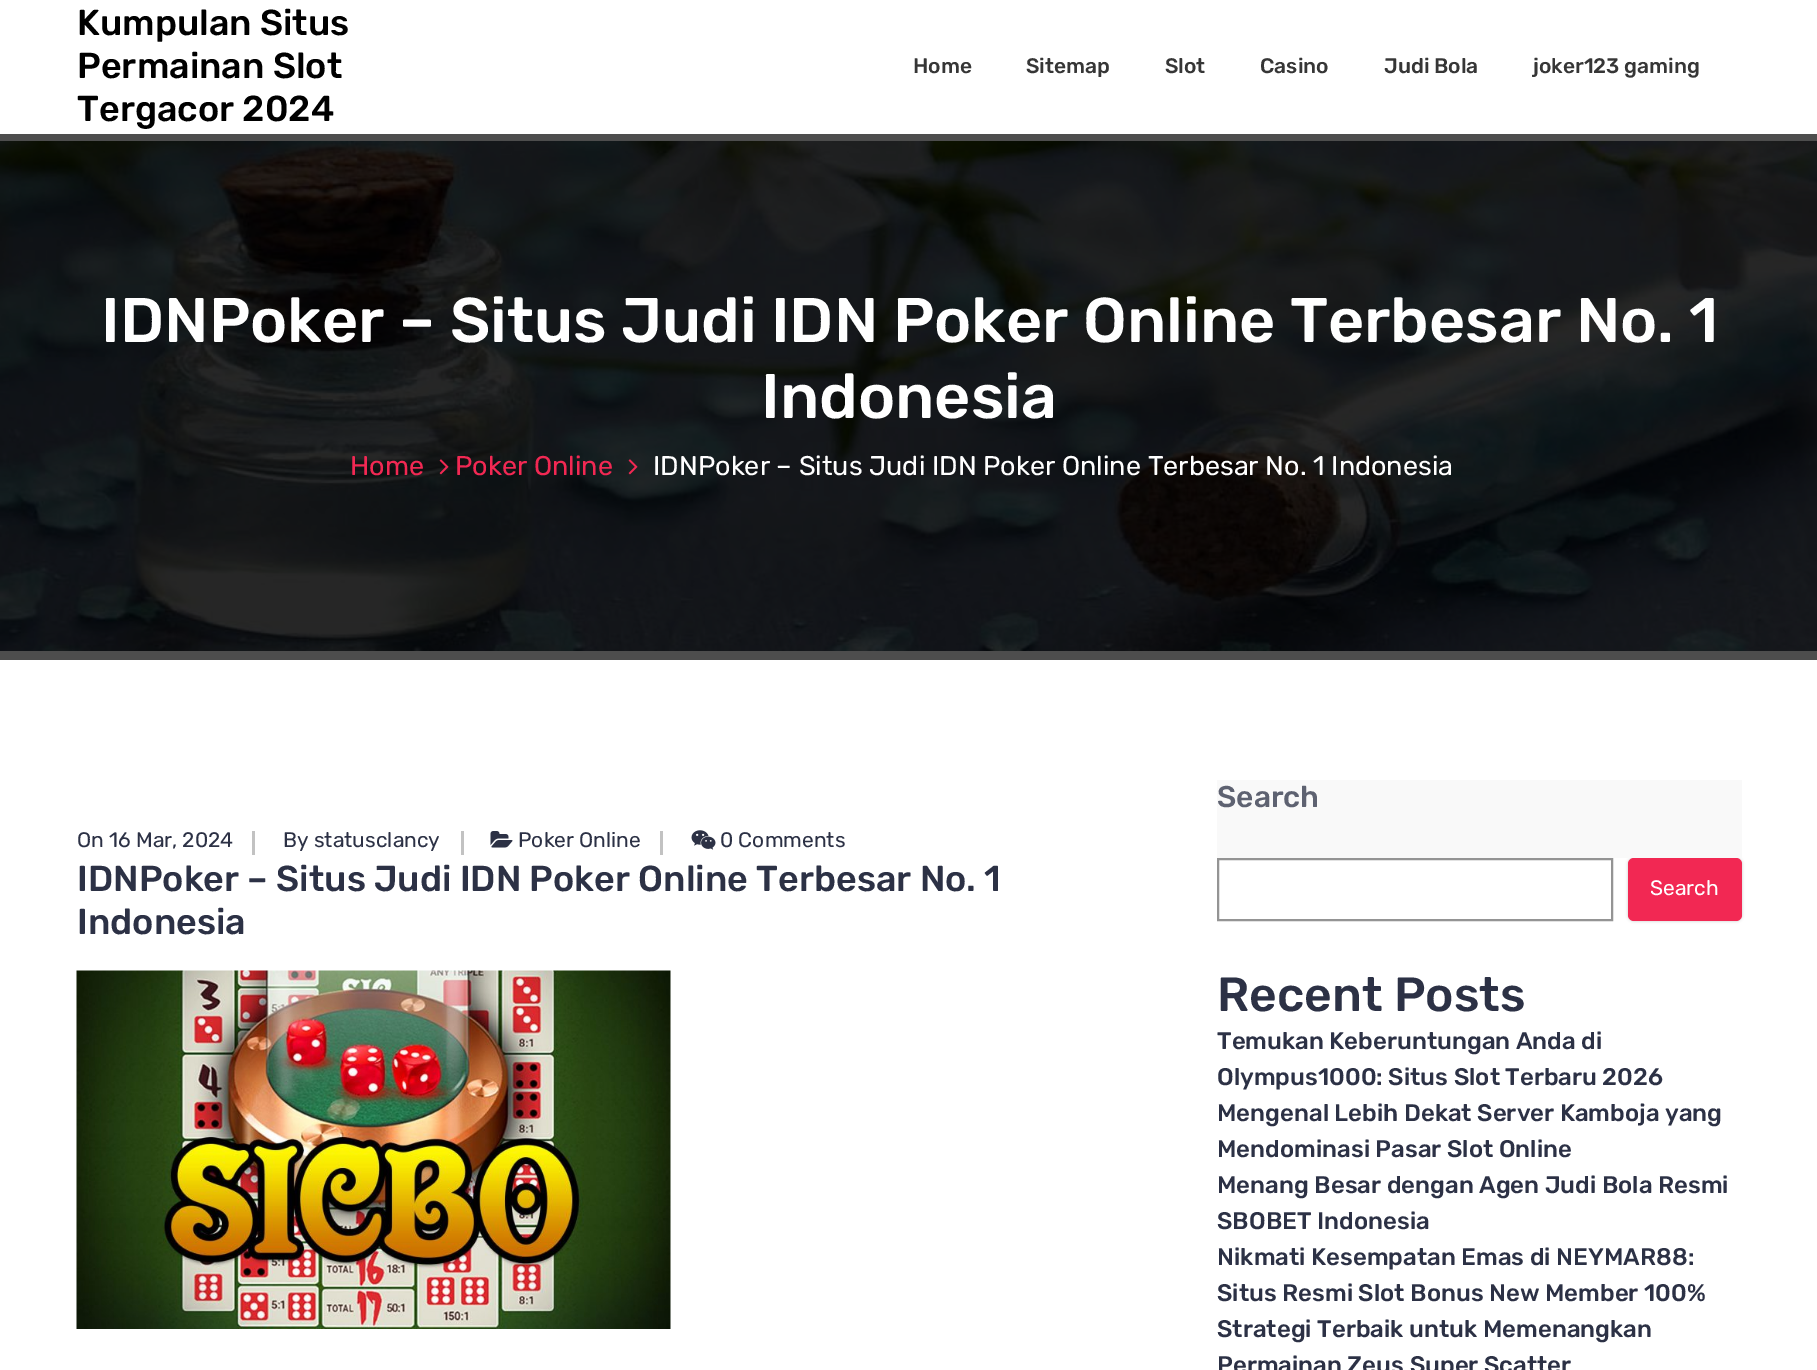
%!PS
<< /PageSize [1817 1370] /PageUsesTransparency true >> setpagedevice
/f/fill load def
/w/setlinewidth load def
/C { dup -16 bitshift 255 div exch dup -8 bitshift 255 and 255 div exch 255 and 255 div setrgbcolor } def
/F { [ exch dup neg 0 0 3 -1 roll 0 0 ] selectfont } def
/T { moveto show } def
/R { rectfill } def
/A { dup .setfillconstantalpha .setstrokeconstantalpha } def
/Q { 5 dict begin { /r /h /w /y /x } { exch def } forall
  x r add y moveto x w add y 2 copy h add r arct x w add y h add x 1 index r arct
  x y h add x y r arct x y 2 copy exch w add exch r arct closepath end } def
/S { 12 dict begin { /a /b /q /h /w /y /x } { exch def } forall gsave /was 0 def
  9 -2 -9 { dup b mul 4 div /e exch def 1 sub .425 mul 2.718 exch exp 1 add a .99 .min exch div /now exch def
    1 1 now sub 1 was sub div sub A /was now def
    w h .min e 2 mul add 0 gt { x e sub y e sub w e 2 mul add h e 2 mul add
      q e add b .6 mul add w h .min 2 div e add .min 0 .max Q fill } if } for grestore end } def
/I { 5 dict begin { /h /w /y /x /name } { exch def } forall
  gsave x y translate w h scale
  w h 8 [w 0 0 h 0 0] name (r) file false 3 colorimage grestore end } def
0 .pushpdf14devicefilter
0 1370 translate 1 -1 scale
4 setmiterlimit
16#FFFFFF C
0 0 1817 1370 R
16#4D4D4D C
0 134 1817 526 R
/Rubik-Medium 36 F
16#000000 C
(Kumpulan Situs) 77 35 T
(Permainan Slot) 77 78 T
(Tergacor 2024) 77 121 T
/Rubik-Medium 21 F
16#363636 C
(Home) 913 73 T
(Sitemap) 1026 73 T
(Slot) 1165 73 T
(Casino) 1260 73 T
(Judi Bola) 1384 73 T
(joker123 gaming) 1533 73 T
(1.rgb) 0 141 1817 510 I
/Rubik-Medium 63 F
16#FFFFFF C
(IDNPoker – Situs Judi IDN Poker Online Terbesar No. 1) 101 342 T
(Indonesia) 761 418 T
/Rubik-Regular 27 F
16#F22853 C
(Home) 350 475 T
(2.rgb) 439 459 10 16 I
(Poker Online) 455 475 T
(3.rgb) 628 459 10 16 I
16#FFFFFF C
(IDNPoker – Situs Judi IDN Poker Online Terbesar No. 1 Indonesia) 653 475 T
/Rubik-Regular 21 F
16#2C3145 C
(On 16 Mar, 2024) 77 847 T
16#C2C2C2 C
252 831 3 24 R
16#2C3145 C
(By statusclancy) 283 847 T
16#C2C2C2 C
461 831 3 24 R
(4.rgb) 490 831 23 17 I
16#2C3145 C
(Poker Online) 518 847 T
16#C2C2C2 C
660 831 3 24 R
(5.rgb) 691 830 25 20 I
16#2C3145 C
(0 Comments) 720 847 T
/Rubik-Medium 36 F
(IDNPoker – Situs Judi IDN Poker Online Terbesar No. 1) 77 891 T
(Indonesia) 77 934 T
(6.rgb) 76 970 595 359 I
16#070706 C
1628 858 114 63 6 1.5 .2 S
16#F9F9F9 C
1217 780 525 78 R
/Rubik-Medium 30 F
16#5E6271 C
(Search) 1217 807 T
16#949494 C
2 w
1218 859 394 61 rectstroke
16#F22853 C
1628 858 114 63 6 Q f
/Rubik-Regular 21 F
16#FFFFFF C
(Search) 1650 895 T
/Rubik-Medium 48 F
16#2C3145 C
(Recent Posts) 1217 1011 T
/Rubik-Medium 24 F
(Temukan Keberuntungan Anda di) 1217 1049 T
(Olympus1000: Situs Slot Terbaru 2026) 1217 1085 T
(Mengenal Lebih Dekat Server Kamboja yang) 1217 1121 T
(Mendominasi Pasar Slot Online) 1217 1157 T
(Menang Besar dengan Agen Judi Bola Resmi) 1217 1193 T
(SBOBET Indonesia) 1217 1229 T
(Nikmati Kesempatan Emas di NEYMAR88:) 1217 1265 T
(Situs Resmi Slot Bonus New Member 100%) 1217 1301 T
(Strategi Terbaik untuk Memenangkan) 1217 1337 T
(Permainan Zeus Super Scatter) 1217 1373 T
.poppdf14devicefilter showpage
